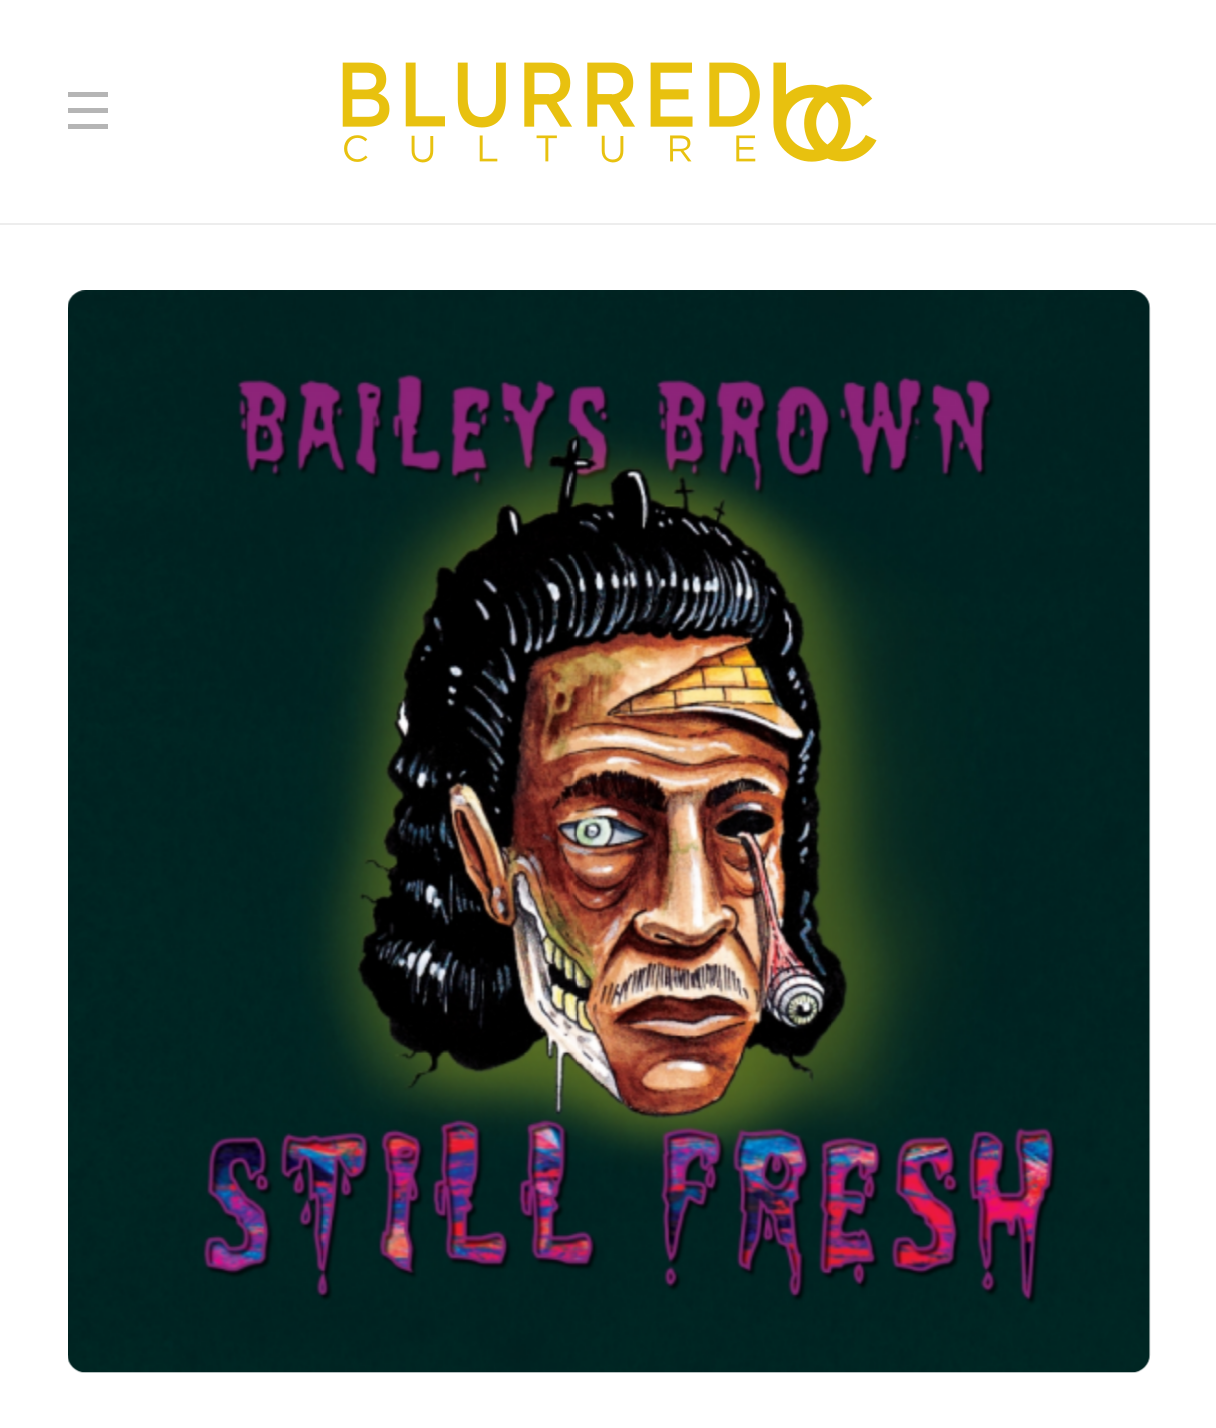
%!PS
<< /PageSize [1216 1428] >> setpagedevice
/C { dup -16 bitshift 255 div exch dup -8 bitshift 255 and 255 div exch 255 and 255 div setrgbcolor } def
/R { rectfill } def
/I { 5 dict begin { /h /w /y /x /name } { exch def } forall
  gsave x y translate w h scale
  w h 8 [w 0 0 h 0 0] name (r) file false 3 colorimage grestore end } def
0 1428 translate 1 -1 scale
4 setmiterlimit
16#FFFFFF C
0 0 1216 1428 R
16#EDEDED C
0 223 1216 2 R
16#B5B5B5 C
68 92 40 5 R
68 108 40 5 R
68 124 40 5 R
(1.rgb) 342 62 535 101 I
(2.rgb) 68 290 1083 1083 I
showpage
